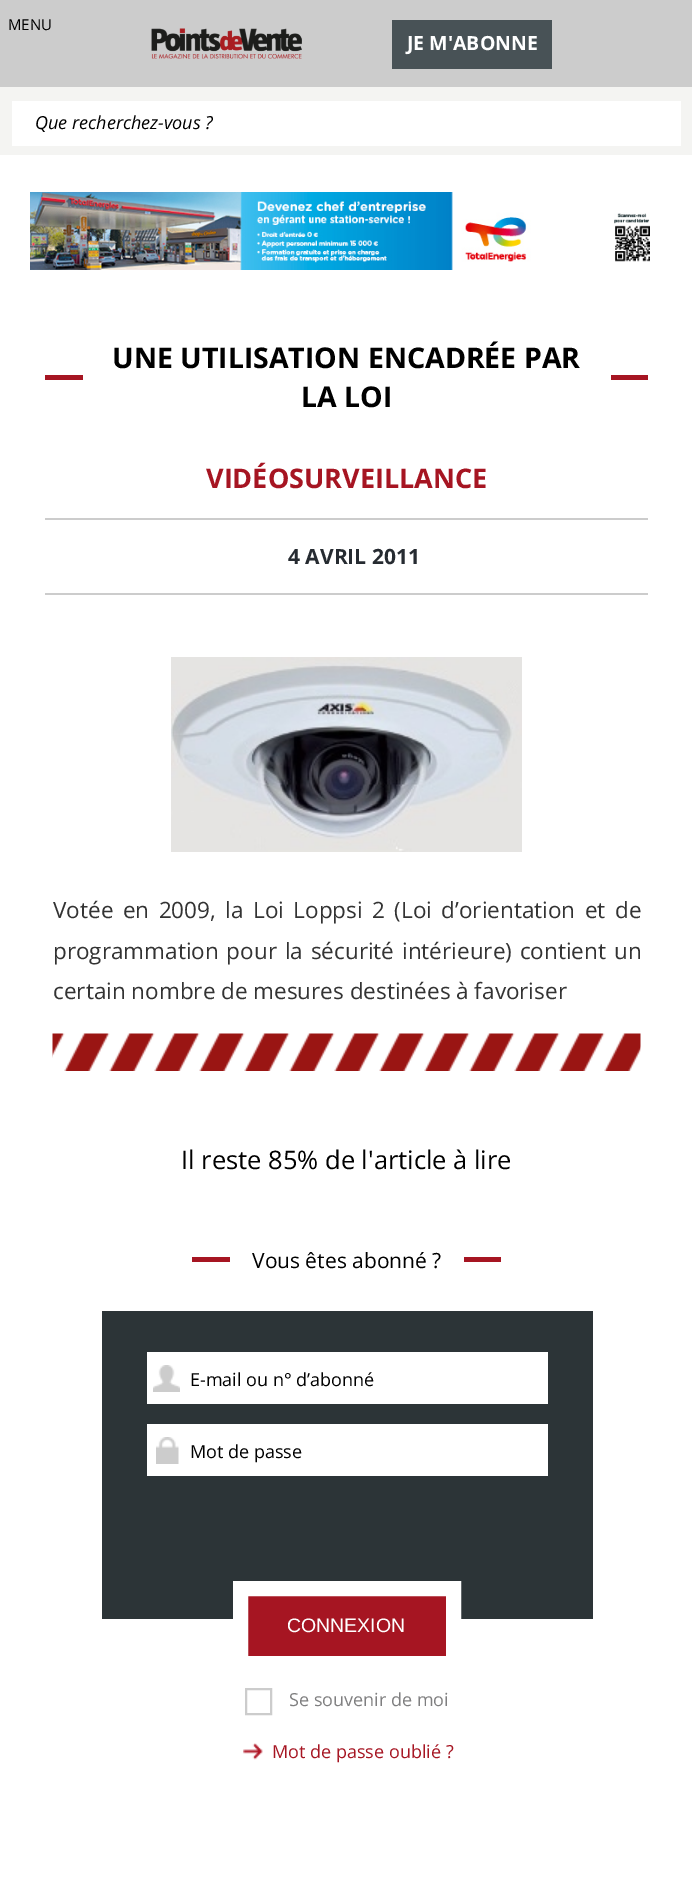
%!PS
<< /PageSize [692 1881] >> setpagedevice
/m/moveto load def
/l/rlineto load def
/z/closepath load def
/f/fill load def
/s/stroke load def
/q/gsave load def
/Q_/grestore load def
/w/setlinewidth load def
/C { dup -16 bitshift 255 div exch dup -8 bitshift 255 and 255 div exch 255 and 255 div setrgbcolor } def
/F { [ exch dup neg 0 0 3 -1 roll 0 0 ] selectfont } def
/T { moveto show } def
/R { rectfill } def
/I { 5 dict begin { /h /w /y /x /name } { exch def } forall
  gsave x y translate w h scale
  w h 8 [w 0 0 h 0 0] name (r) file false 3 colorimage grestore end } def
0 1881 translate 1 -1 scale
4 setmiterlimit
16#FFFFFF C
0 0 692 1881 R
16#CCCCCC C
0 0 692 87 R
/OpenSans-Regular 15 F
16#000000 C
(MENU) 8 30 T
(1.rgb) 151 28 151 31 I
16#485256 C
392 20 160 49 R
/OpenSans-Bold 19.5 F
16#FFFFFF C
(JE M'ABONNE) 407 50 T
16#F4F4F2 C
0 87 692 68 R
16#FFFFFF C
12 101 669 45 R
/OpenSans-Italic 18 F
16#000000 C
(Que recherchez-vous ?) 35 129 T
(2.rgb) 30 192 620 78 I
/OpenSans-Bold 28.5 F
(UNE UTILISATION ENCADRÉE PAR) 112 368 T
16#A61522 C
45 375 38 5 R
611 375 37 5 R
16#000000 C
(LA LOI) 301 407 T
/OpenSans-Bold 27 F
16#A61522 C
(VIDÉOSURVEILLANCE) 206 488 T
16#CCCCCC C
45 518 603 2 R
45 593 603 2 R
/OpenSans-Bold 21 F
16#262B31 C
(4 AVRIL 2011) 288 564 T
(3.rgb) 171 657 351 195 I
/OpenSans-Regular 22.5 F
16#333333 C
53 918 m 3.6 0 32 (Votée en 2009, la Loi Loppsi 2 \(Loi d’orientation et de) widthshow
53 959 m 2 0 32 (programmation pour la sécurité intérieure\) contient un) widthshow
(certain nombre de mesures destinées à favoriser) 53 999 T
(4.rgb) 52 1033 589 38 I
/OpenSans-Regular 25.5 F
16#000000 C
(Il reste 85% de l'article à lire) 181 1169 T
16#A61522 C
192 1257 38 5 R
/OpenSans-Regular 21 F
16#000000 C
(Vous êtes abonné ?) 252 1268 T
16#A61522 C
464 1257 37 5 R
16#2C3437 C
102 1311 491 308 R
16#FFFFFF C
147 1352 401 52 R
(5.rgb) 153 1365 27 27 I
/OpenSans-Regular 18 F
16#000000 C
(E-mail ou n° d’abonné) 190 1386 T
16#FFFFFF C
147 1424 401 52 R
(6.rgb) 156 1437 23 27 I
16#000000 C
(Mot de passe) 190 1458 T
16#A61522 C
240.5 1588.5 m 213 0 l 0 75 l -213 0 l z q f Q_
16#FFFFFF C
15 w
s
/LiberationSans-Regular 19.5 F
(CONNEXION) 287 1632 T
16#CCCCCC C
2 w
246 1689 25 25 rectstroke
/OpenSans-Regular 18 F
16#7F7F80 C
(Se souvenir de moi) 289 1706 T
(7.rgb) 243 1743 20 17 I
16#A61522 C
(Mot de passe oublié ?) 272 1758 T
showpage
